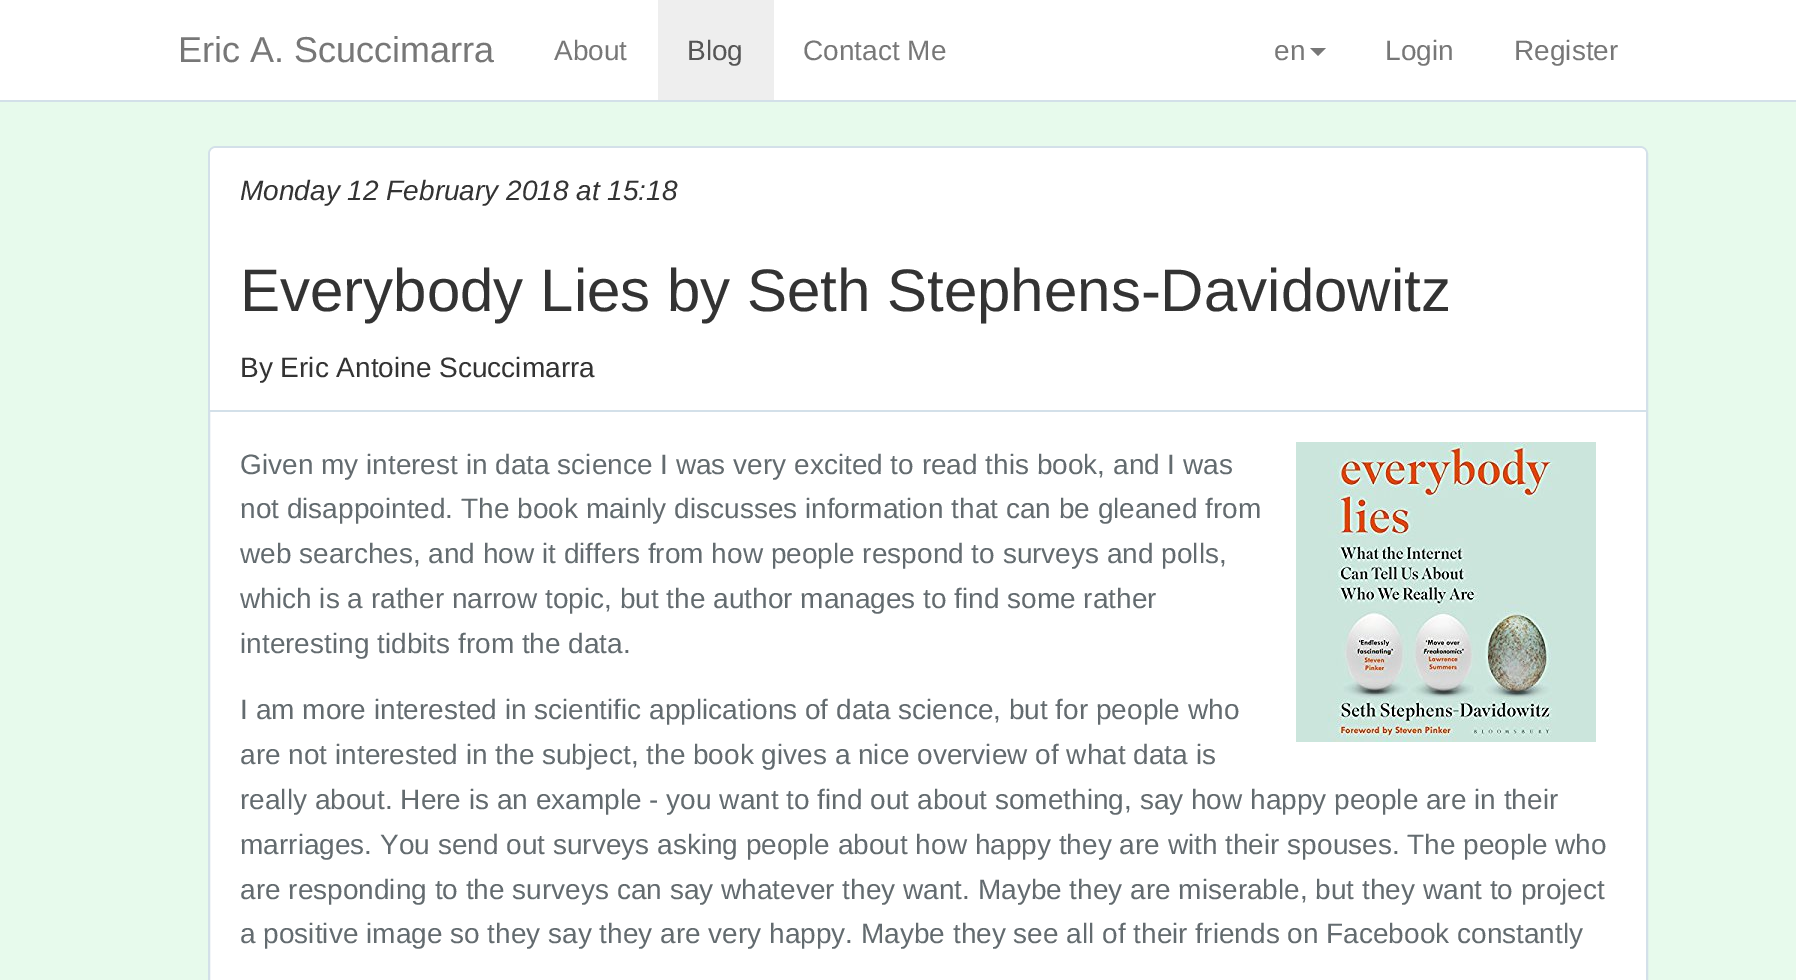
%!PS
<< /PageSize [1796 980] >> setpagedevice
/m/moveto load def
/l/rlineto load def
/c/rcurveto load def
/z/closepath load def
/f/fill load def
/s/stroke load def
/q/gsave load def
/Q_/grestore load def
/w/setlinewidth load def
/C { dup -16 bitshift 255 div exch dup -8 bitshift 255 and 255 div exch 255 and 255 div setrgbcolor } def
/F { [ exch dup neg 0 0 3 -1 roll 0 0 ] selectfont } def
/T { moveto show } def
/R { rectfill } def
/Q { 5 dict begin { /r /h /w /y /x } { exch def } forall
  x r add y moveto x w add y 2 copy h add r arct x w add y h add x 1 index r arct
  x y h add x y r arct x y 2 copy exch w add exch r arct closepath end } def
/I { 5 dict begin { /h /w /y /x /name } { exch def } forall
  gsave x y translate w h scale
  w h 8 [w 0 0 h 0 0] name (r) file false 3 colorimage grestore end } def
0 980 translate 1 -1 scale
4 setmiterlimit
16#E7FAEC C
0 0 1796 980 R
16#FFFFFF C
0 0 1796 100 R
16#D3E0E9 C
0 100 1796 2 R
/LiberationSans-Regular 36 F
16#777777 C
(Eric A. Scuccimarra) 178 62 T
/LiberationSans-Regular 28 F
(About) 554 60 T
16#EEEEEE C
658 0 116 100 R
16#555555 C
(Blog) 687 60 T
16#777777 C
(Contact Me) 803 60 T
(en) 1274 60 T
1310 48 m 16 0 l -8 8 l z f
(Login) 1385 60 T
(Register) 1514 60 T
16#FFFFFF C
209 147 1438 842 7 Q q f Q_
16#D3E0E9 C
2 w
s
16#FFFFFF C
216 148 m 1424 0 l 3.5 0 6 2.5 6 6 c 0 258 l -1436 0 l 0 -258 l 0 -3.5 2.5 -6 6 -6 c z f
16#D3E0E9 C
210 410 1436 2 R
/LiberationSans-Italic 28 F
16#333333 C
(Monday 12 February 2018 at 15:18) 240 200 T
/LiberationSans-Regular 60 F
(Everybody Lies by Seth Stephens-Davidowitz) 240 311 T
/LiberationSans-Regular 28 F
(By Eric Antoine Scuccimarra) 240 377 T
16#636B6F C
(Given my interest in data science I was very excited to read this book, and I was) 240 474 T
(1.rgb) 1296 442 300 300 I
(not disappointed. The book mainly discusses information that can be gleaned from) 240 518 T
(web searches, and how it differs from how people respond to surveys and polls,) 240 563 T
(which is a rather narrow topic, but the author manages to find some rather) 240 608 T
(interesting tidbits from the data.) 240 653 T
(I am more interested in scientific applications of data science, but for people who) 240 719 T
(are not interested in the subject, the book gives a nice overview of what data is) 240 764 T
(really about. Here is an example - you want to find out about something, say how happy people are in their) 240 809 T
(marriages. You send out surveys asking people about how happy they are with their spouses. The people who) 240 854 T
(are responding to the surveys can say whatever they want. Maybe they are miserable, but they want to project) 240 899 T
(a positive image so they say they are very happy. Maybe they see all of their friends on Facebook constantly) 240 943 T
showpage
